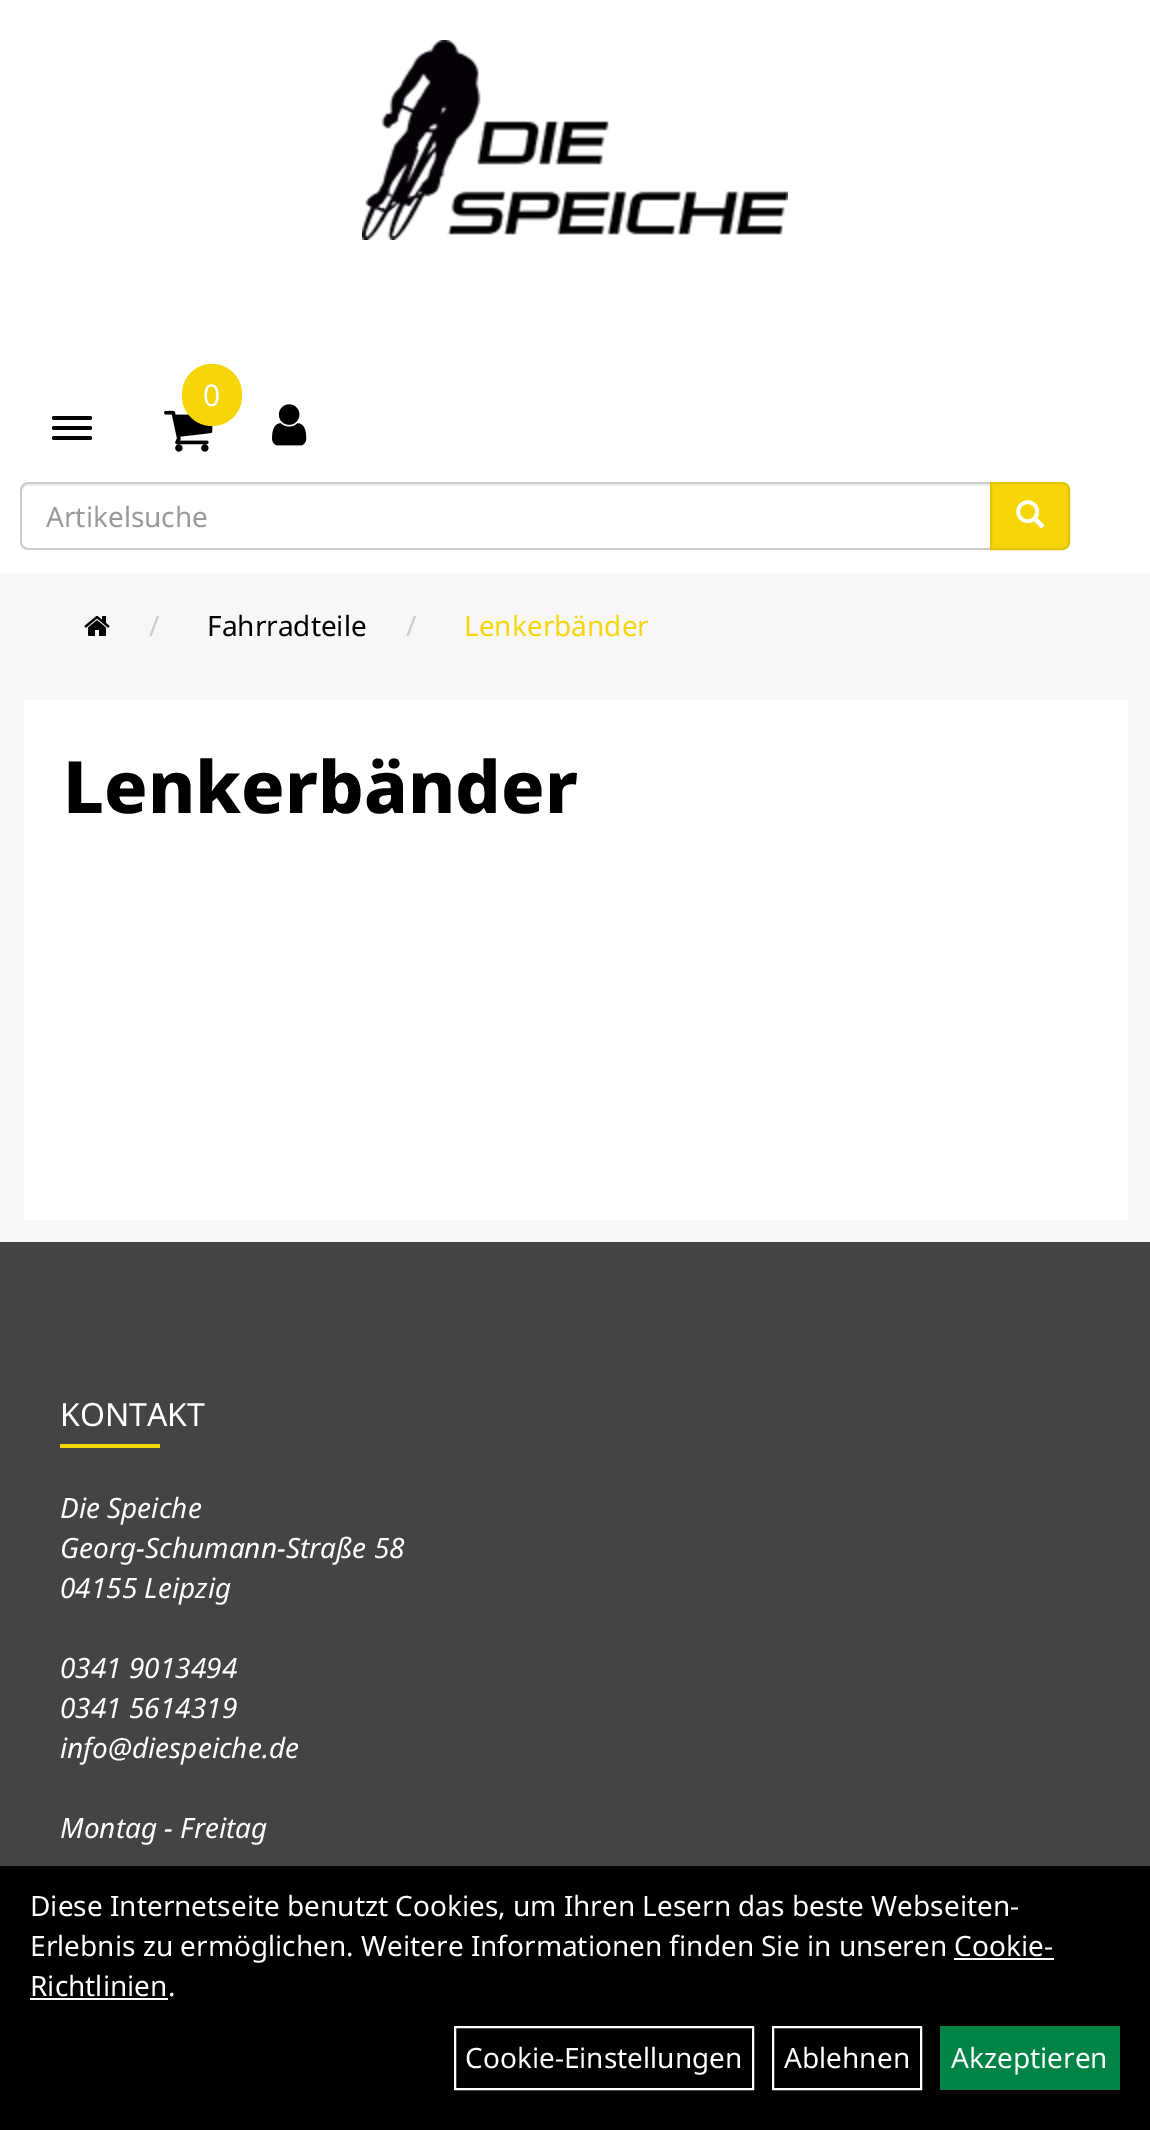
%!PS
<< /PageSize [1150 2130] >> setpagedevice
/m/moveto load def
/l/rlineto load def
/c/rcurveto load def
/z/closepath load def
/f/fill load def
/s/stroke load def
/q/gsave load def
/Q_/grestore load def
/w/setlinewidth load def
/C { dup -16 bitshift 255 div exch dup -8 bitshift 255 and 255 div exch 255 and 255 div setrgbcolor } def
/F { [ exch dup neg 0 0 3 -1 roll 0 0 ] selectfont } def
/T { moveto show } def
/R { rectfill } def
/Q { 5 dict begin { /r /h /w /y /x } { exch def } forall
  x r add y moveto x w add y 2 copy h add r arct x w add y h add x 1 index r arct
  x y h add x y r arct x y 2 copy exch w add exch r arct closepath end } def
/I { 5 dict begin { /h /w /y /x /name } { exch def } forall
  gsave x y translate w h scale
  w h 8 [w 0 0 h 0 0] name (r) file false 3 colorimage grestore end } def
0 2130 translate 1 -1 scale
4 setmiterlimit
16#F7F7F7 C
0 0 1150 2130 R
16#FFFFFF C
0 0 1150 574 R
(1.rgb) 362 40 426 200 I
(2.rgb) 164 410 49 42 I
16#F6D609 C
182 364 60 62 30 Q f
/NotoSans-Regular 30 F
16#FFFFFF C
(0) 203 406 T
16#000000 C
52 416 40 4 2 Q f
52 426 40 4 2 Q f
52 436 40 4 2 Q f
(3.rgb) 272 404 35 42 I
16#ECECEC C
28 486 m 962 0 l 0 -2 l -962 0 l -5 0 -6 4 -6 8 c 0 -3 3 -6 6 -6 c z f
16#CCCCCC C
28 482 m 962 0 l 0 68 l -962 0 l -4 0 -8 -4 -8 -8 c 0 -52 l 0 -4 4 -8 8 -8 c z 28 484 m 962 0 l 0 64 l -962 0 l -3 0 -6 -3 -6 -6 c 0 -52 l 0 -3 3 -6 6 -6 c z eofill
/NotoSans-Regular 28 F
16#999999 C
(Artikelsuche) 46 527 T
16#F6D609 C
991 483 m 71 0 l 4 0 7 3 7 7 c 0 52 l 0 4 -3 7 -7 7 c -71 0 l z q f Q_
16#E0C30B C
2 w
s
(4.rgb) 1016 500 29 29 I
(5.rgb) 84 616 26 20 I
16#CCCCCC C
(/) 149 636 T
16#000000 C
(Fahrradteile) 207 636 T
16#CCCCCC C
(/) 406 636 T
16#F6D609 C
(Lenkerbänder) 464 636 T
16#FFFFFF C
24 700 1104 520 R
/NotoSans-ExtraBold 72 F
16#000000 C
(Lenkerbänder) 63 813 T
16#444444 C
0 1242 1150 624 R
/NotoSans-Regular 32 F
16#FFFFFF C
(KONTAKT) 60 1426 T
16#F6D609 C
60 1444 100 4 R
/NotoSans-Italic 28 F
16#FFFFFF C
(Die Speiche) 60 1518 T
(Georg-Schumann-Straße 58) 60 1558 T
(04155 Leipzig) 60 1598 T
(0341 9013494) 60 1678 T
(0341 5614319) 60 1718 T
(info@diespeiche.de) 60 1758 T
(Montag - Freitag) 60 1838 T
16#000000 C
0 1866 1150 264 R
/NotoSans-Regular 28 F
16#FFFFFF C
(Diese Internetseite benutzt Cookies, um Ihren Lesern das beste Webseiten-) 30 1916 T
(Erlebnis zu ermöglichen. Weitere Informationen finden Sie in unseren Cookie-) 30 1956 T
(Richtlinien.) 30 1996 T
954 1958 100 2 R
30 1998 138 2 R
455 2027 298 62 rectstroke
(Cookie-Einstellungen) 465 2068 T
773 2027 148 62 rectstroke
(Ablehnen) 784 2068 T
16#008446 C
940 2026 180 64 R
16#FFFFFF C
(Akzeptieren) 951 2068 T
showpage
